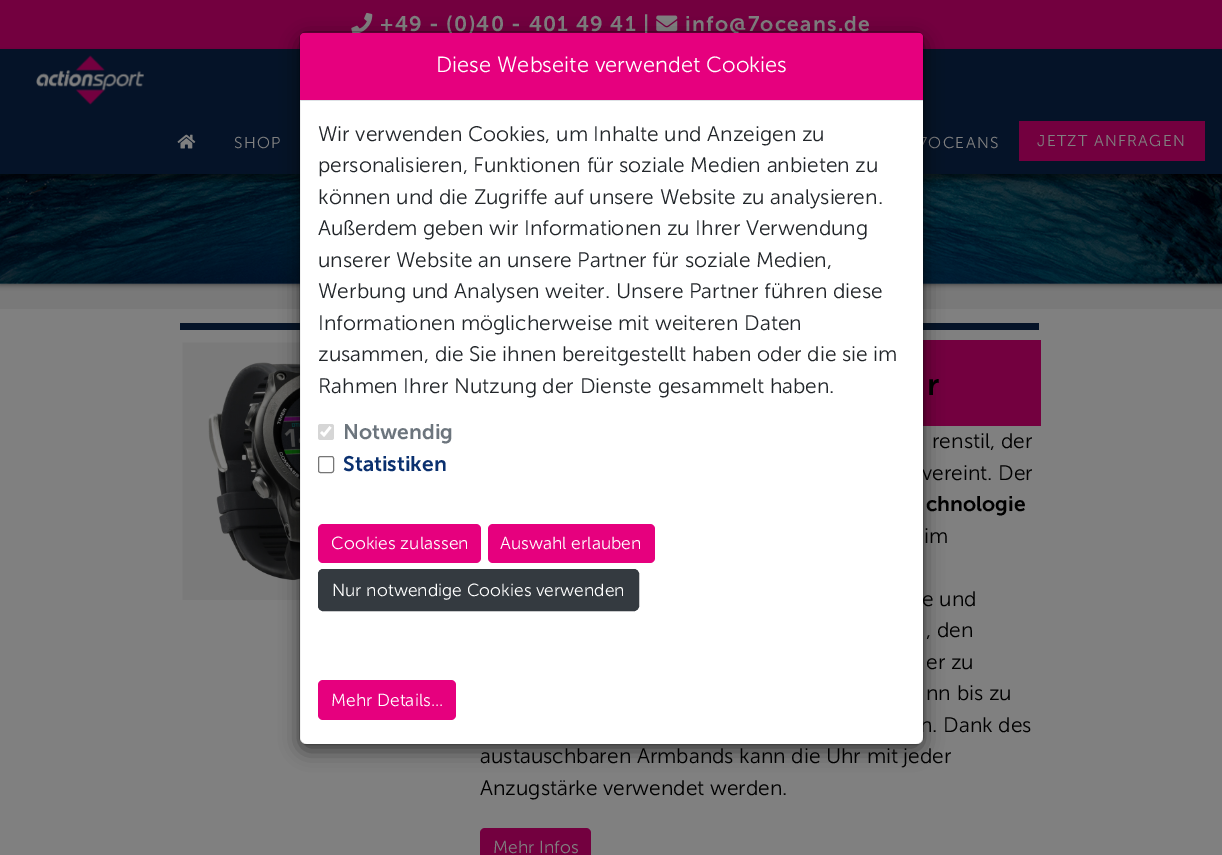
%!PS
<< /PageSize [1222 855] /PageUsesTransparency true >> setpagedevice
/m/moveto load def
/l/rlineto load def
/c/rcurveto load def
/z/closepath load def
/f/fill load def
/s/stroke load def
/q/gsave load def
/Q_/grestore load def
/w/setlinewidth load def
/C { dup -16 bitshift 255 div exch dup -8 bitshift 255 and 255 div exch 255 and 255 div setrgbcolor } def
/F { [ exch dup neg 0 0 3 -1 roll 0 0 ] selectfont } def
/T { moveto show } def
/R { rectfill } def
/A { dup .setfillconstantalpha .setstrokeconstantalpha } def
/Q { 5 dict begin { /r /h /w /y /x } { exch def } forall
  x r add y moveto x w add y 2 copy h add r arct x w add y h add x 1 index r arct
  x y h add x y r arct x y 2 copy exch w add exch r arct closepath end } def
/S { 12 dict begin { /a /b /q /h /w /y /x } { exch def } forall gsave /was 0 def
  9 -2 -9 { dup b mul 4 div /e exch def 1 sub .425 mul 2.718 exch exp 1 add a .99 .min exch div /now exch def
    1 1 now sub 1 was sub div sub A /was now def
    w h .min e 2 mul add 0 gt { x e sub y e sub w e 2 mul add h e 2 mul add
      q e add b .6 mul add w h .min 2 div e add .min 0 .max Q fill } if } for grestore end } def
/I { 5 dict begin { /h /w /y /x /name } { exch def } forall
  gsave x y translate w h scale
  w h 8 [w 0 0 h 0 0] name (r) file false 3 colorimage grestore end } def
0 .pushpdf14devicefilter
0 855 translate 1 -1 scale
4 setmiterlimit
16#797979 C
0 0 1222 855 R
16#73003F C
0 0 1222 49 R
(1.rgb) 351 12 22 21 I
/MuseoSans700-SemiBold 21 F
16#808080 C
380 31 m 1.25 0 (+49 - \(0\)40 - 401 49 41 |) ashow
(2.rgb) 656 15 22 17 I
685 31 m 1.25 0 (info@7oceans.de) ashow
16#343434 C
0 174 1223 110 0 3 1 S
(5.rgb) 0 174 1222 110 I
16#000000 C
0 54 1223 125 0 3 .54 S
16#051328 C
0 49 1222 125 R
(3.rgb) 36 55 108 50 I
(4.rgb) 177 134 19 15 I
/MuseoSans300-Light 15.75 F
16#808080 C
234 148 m 1.25 0 (SHOP) ashow
919 148 m 1.25 0 (7OCEANS) ashow
16#73003F C
1019 121 186 40 R
16#808080 C
1037 146 m 1.25 0 (JETZT ANFRAGEN) ashow
0 309 1222 546 R
16#051328 C
180 323 859 7 R
(6.rgb) 182 342 118 258 I
16#73003F C
923 340 118 86 R
/MuseoSans700-SemiBold 31 F
16#000000 C
(r) 927 395 T
/MuseoSans300-Light 21 F
(renstil, der) 932 448 T
(vereint. Der) 922 480 T
/MuseoSans700-SemiBold 21 F
(chnologie) 926 511 T
/MuseoSans300-Light 21 F
(im) 924 543 T
(e und) 922 606 T
(, den) 926 637 T
(er zu) 926 669 T
(nn bis zu) 926 700 T
(n. Dank des) 920 732 T
(austauschbaren Armbands kann die Uhr mit jeder) 480 763 T
(Anzugstärke verwendet werden.) 480 795 T
16#73003F C
480 828 111 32 5 Q f
/MuseoSans300-Light 17.5 F
16#808080 C
(Mehr Infos) 493 853 T
16#000000 C
299 38 625 713 8 9.5 .5 S
16#FFFFFF C
300 33 623 711 6 Q f
0.2 A
16#000000 C
299.5 31.5 624 713 7.5 Q s
1 A
16#E6007E C
304 33 m 615 0 l 2 0 4 2 4 4 c 0 64 l -623 0 l 0 -64 l 0 -2 2 -4 4 -4 c z f
16#DEE2E6 C
300 100 623 1 R
/MuseoSans300-Light 21.9 F
16#FFFFFF C
(Diese Webseite verwendet Cookies) 436 72 T
/MuseoSans300-Light 21 F
16#212529 C
(Wir verwenden Cookies, um Inhalte und Anzeigen zu) 318 141 T
(personalisieren, Funktionen für soziale Medien anbieten zu) 318 172 T
(können und die Zugriffe auf unsere Website zu analysieren.) 318 204 T
(Außerdem geben wir Informationen zu Ihrer Verwendung) 318 235 T
(unserer Website an unsere Partner für soziale Medien,) 318 267 T
(Werbung und Analysen weiter. Unsere Partner führen diese) 318 298 T
(Informationen möglicherweise mit weiteren Daten) 318 330 T
(zusammen, die Sie ihnen bereitgestellt haben oder die sie im) 318 361 T
(Rahmen Ihrer Nutzung der Dienste gesammelt haben.) 318 393 T
16#D6D6D6 C
318 424 16 16 2.5 Q f
16#FFFFFF C
2.6 w
321 432 m 3 3 l 6.5 -8 l s
/MuseoSans700-SemiBold 21 F
16#6C757D C
(Notwendig) 343 439 T
16#767676 C
1 w
318.5 456.5 15 16 2 Q s
16#0A306F C
(Statistiken) 343 471 T
16#E6007E C
318 524 163 39 5 Q f
/MuseoSans300-Light 17.5 F
16#FFFFFF C
(Cookies zulassen) 331 549 T
16#E6007E C
488 524 167 39 5 Q f
16#FFFFFF C
(Auswahl erlauben) 500 549 T
16#343A40 C
318.5 569.5 320 41 4.5 Q q f Q_
s
16#FFFFFF C
(Nur notwendige Cookies verwenden) 332 596 T
16#E6007E C
318 680 138 40 5 Q f
16#FFFFFF C
(Mehr Details...) 331 706 T
.poppdf14devicefilter showpage
